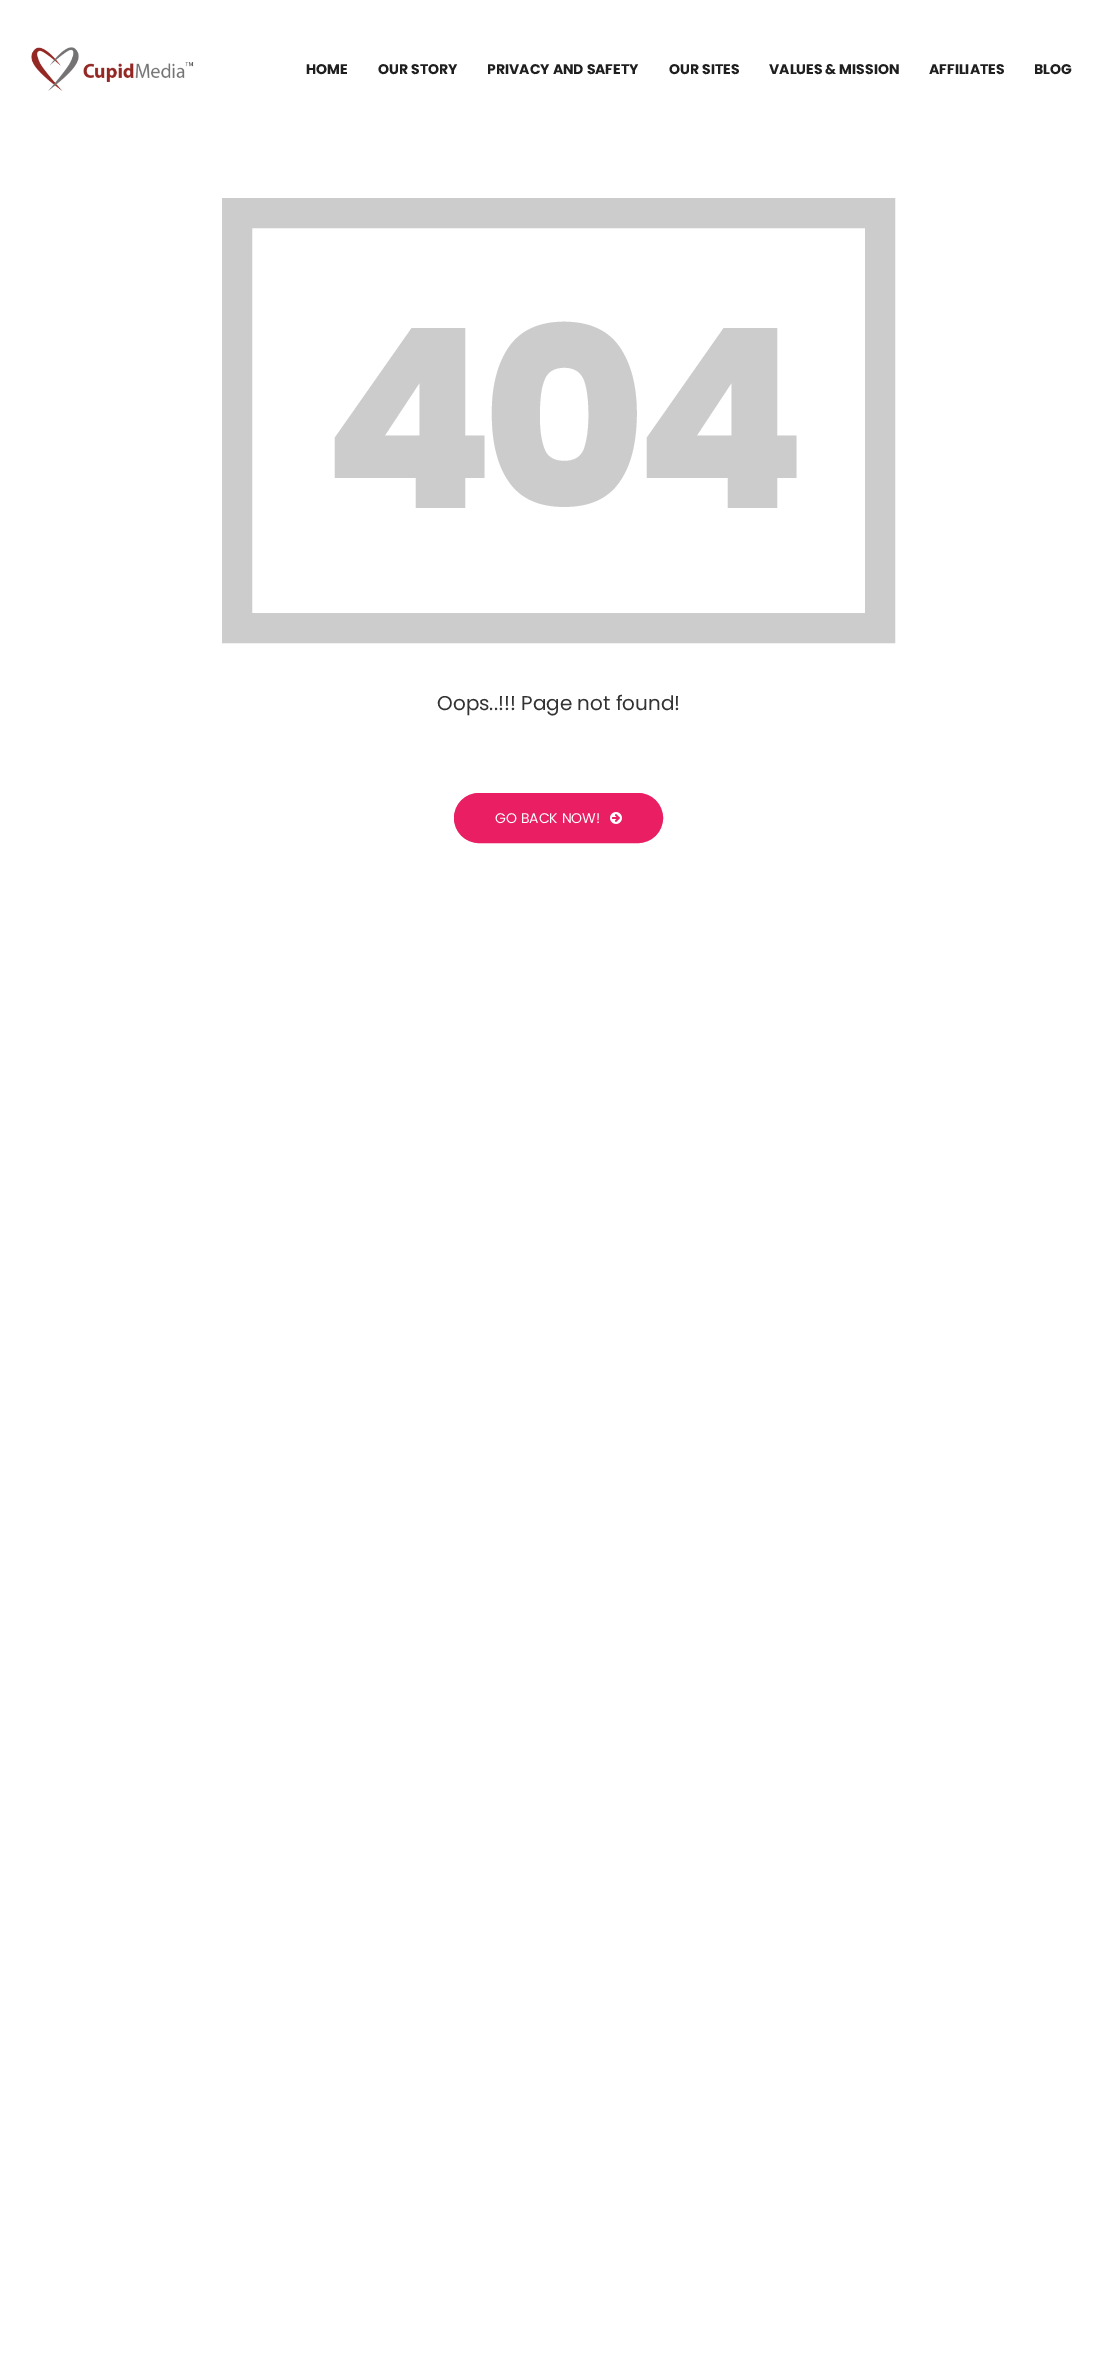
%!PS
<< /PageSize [1117 2358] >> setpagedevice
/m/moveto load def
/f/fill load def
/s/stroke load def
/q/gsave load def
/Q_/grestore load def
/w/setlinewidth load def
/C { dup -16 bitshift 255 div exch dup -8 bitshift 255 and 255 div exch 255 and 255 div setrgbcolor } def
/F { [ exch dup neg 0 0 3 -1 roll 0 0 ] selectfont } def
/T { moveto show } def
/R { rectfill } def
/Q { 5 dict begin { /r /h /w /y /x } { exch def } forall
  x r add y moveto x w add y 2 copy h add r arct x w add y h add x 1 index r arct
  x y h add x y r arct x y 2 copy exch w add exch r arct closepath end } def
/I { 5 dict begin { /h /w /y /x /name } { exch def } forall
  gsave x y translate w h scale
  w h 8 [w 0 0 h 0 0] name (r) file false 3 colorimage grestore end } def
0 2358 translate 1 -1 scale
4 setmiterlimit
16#FFFFFF C
0 0 1117 2358 R
(1.rgb) 31 47 163 44 I
/Poppins-Bold 14 F
16#1F1F1F C
(HOME) 306 74 T
(OUR STORY) 378 74 T
(PRIVACY AND SAFETY) 487 74 T
(OUR SITES) 669 74 T
(VALUES & MISSION) 769 74 T
(AFFILIATES) 929 74 T
(BLOG) 1034 74 T
16#CCCCCC C
30 w
237 213 643 415 rectstroke
/Poppins-ExtraBold 250 F
322 508 m -12.5 0 (404) ashow
/Poppins-Regular 20 F
16#333333 C
(Oops..!!! Page not found!) 437 710 T
16#E91E63 C
454.5 793.5 208 49 24.5 Q q f Q_
1 w
s
/Poppins-Regular 14 F
16#FFFFFF C
(GO BACK NOW!) 495 823 T
(2.rgb) 610 812 12 12 I
showpage
